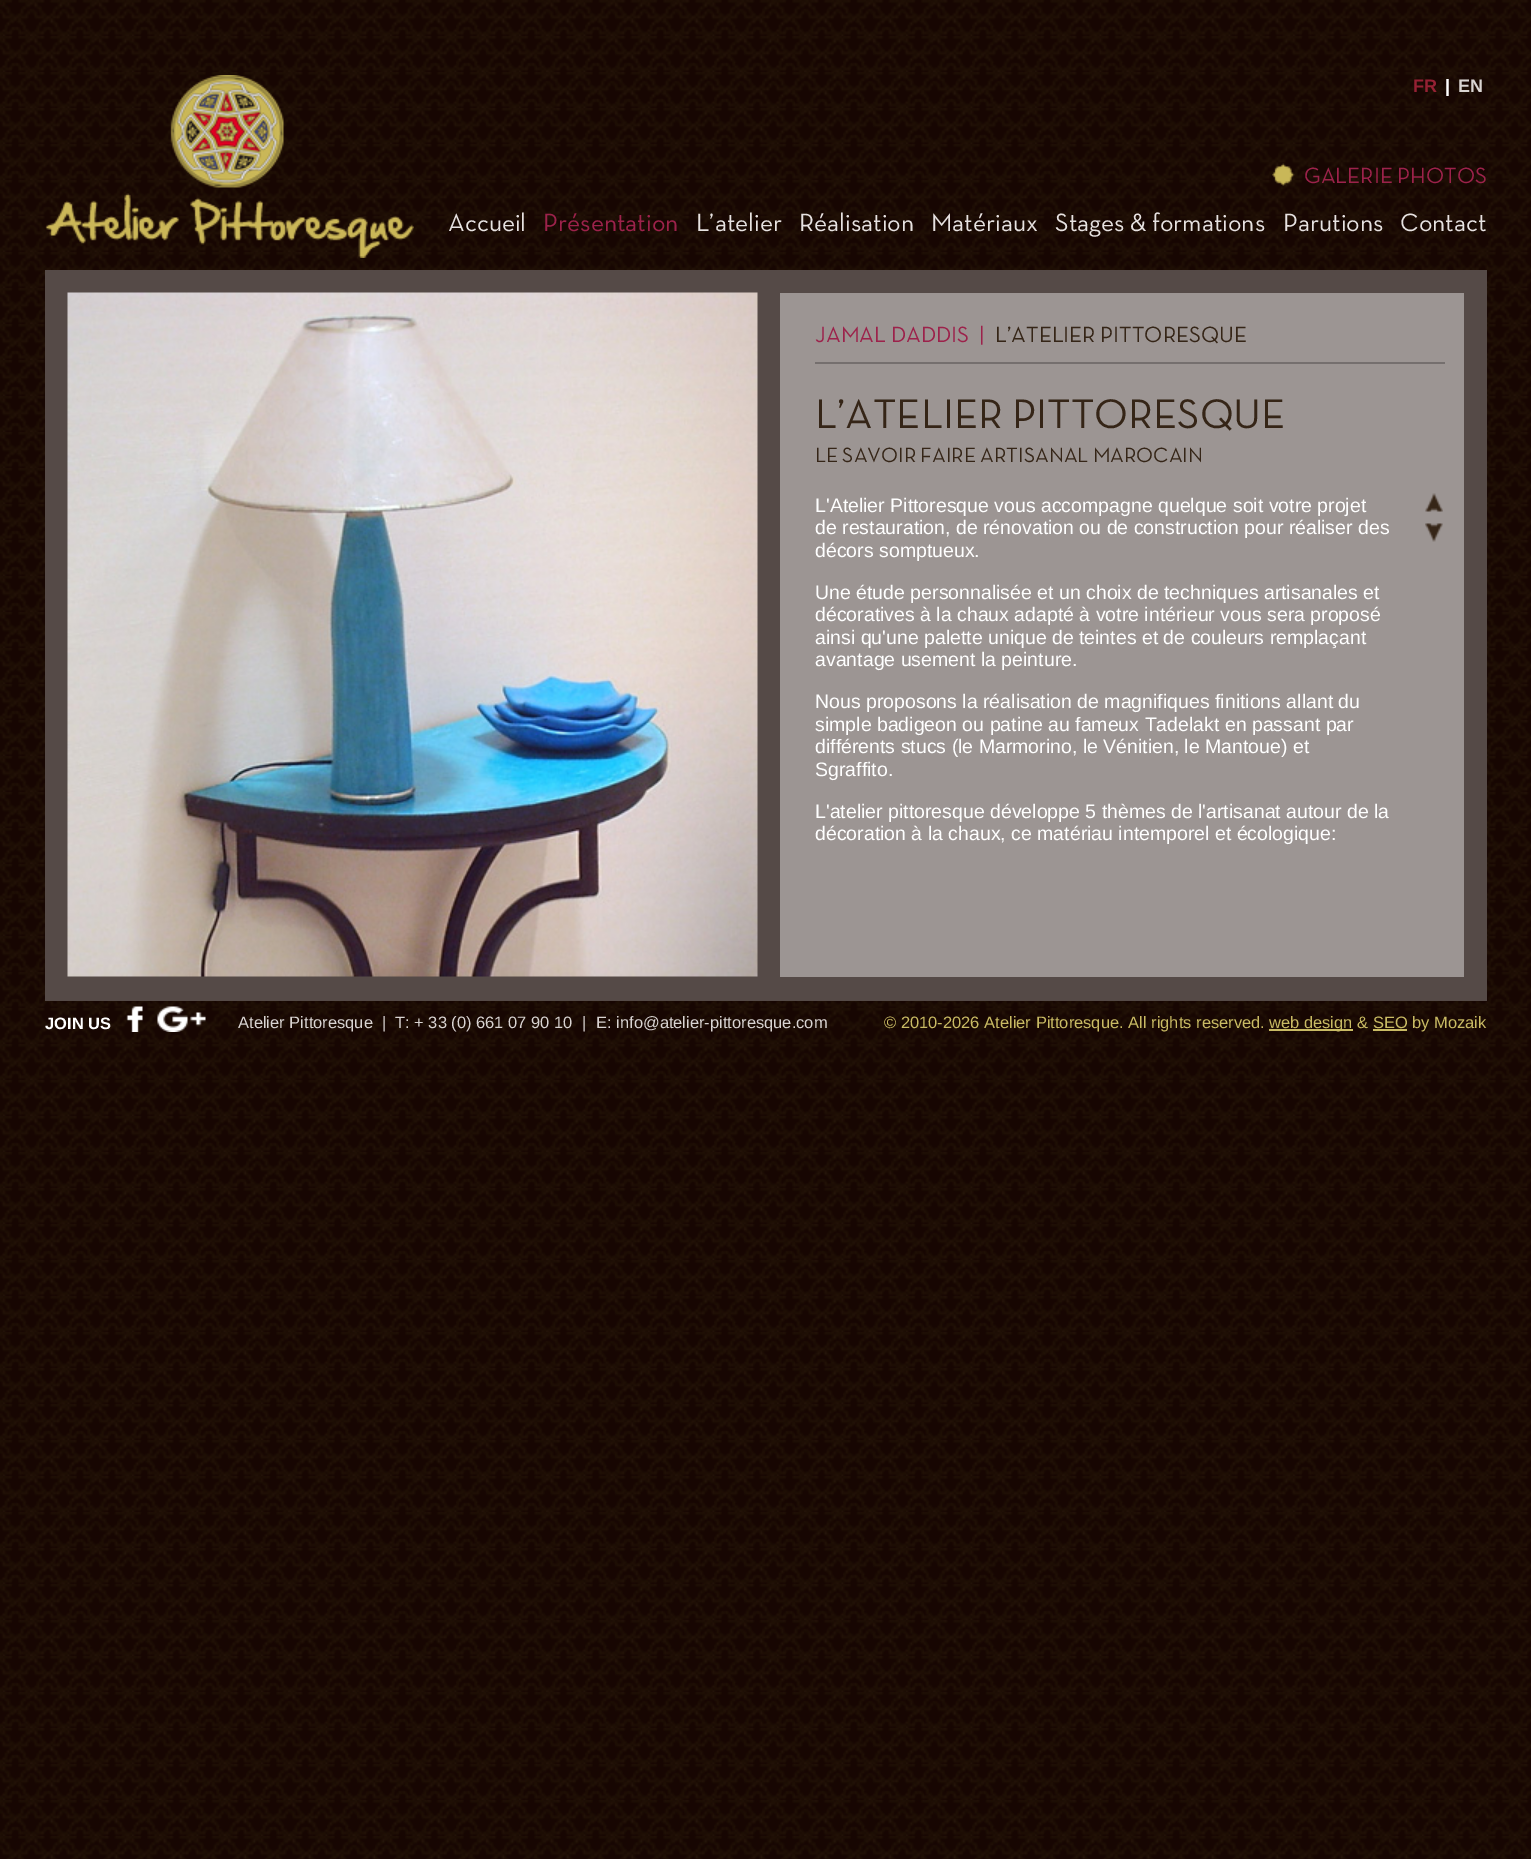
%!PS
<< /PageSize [1531 1859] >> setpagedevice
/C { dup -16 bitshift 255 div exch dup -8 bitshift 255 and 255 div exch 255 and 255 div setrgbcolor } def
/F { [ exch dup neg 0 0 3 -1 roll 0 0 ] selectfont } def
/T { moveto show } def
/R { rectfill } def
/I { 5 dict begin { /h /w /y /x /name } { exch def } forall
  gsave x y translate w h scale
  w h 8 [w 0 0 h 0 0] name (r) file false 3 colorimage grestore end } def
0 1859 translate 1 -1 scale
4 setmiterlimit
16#FFFFFF C
0 0 1531 1859 R
(1.rgb) 0 0 1531 1859 I
(2.rgb) 45 75 369 183 I
/LiberationSans-Bold 18 F
16#952134 C
(FR) 1413 92 T
16#FFFFFF C
(|) 1445 92 T
16#D9D4D2 C
(EN) 1458 92 T
(3.rgb) 1272 163 23 23 I
/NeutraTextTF-Regular 22.5 F
16#9C224B C
(GALERIE PHOTOS) 1304 183 T
/NeutraTextTF-Regular 25.5 F
16#E7E2E1 C
(Accueil) 448 231 T
16#9C224B C
(Présentation) 543 231 T
16#E7E2E1 C
(L’atelier) 696 231 T
(Réalisation) 799 231 T
(Matériaux) 931 231 T
(Stages & formations) 1055 231 T
(Parutions) 1283 231 T
(Contact) 1400 231 T
16#554A47 C
45 270 1442 731 R
(4.rgb) 67 292 691 685 I
16#9C9593 C
780 293 684 684 R
16#756F6E C
815 362 630 2 R
/NeutraTextTF-Regular 22.5 F
16#9C224B C
(JAMAL DADDIS) 815 342 T
(|) 979 342 T
16#352517 C
(L’ATELIER PITTORESQUE) 995 342 T
/NeutraTextTF-Regular 42 F
(L’ATELIER PITTORESQUE) 815 428 T
/NeutraTextTF-Regular 21 F
(LE SAVOIR FAIRE ARTISANAL MAROCAIN) 815 462 T
/LiberationSans-Regular 19.5 F
16#FFFFFF C
(L'Atelier Pittoresque vous accompagne quelque soit votre projet) 815 512 T
(de restauration, de rénovation ou de construction pour réaliser des) 815 534 T
(décors somptueux.) 815 557 T
(Une étude personnalisée et un choix de techniques artisanales et) 815 599 T
(décoratives à la chaux adapté à votre intérieur vous sera proposé) 815 621 T
(ainsi qu'une palette unique de teintes et de couleurs remplaçant) 815 644 T
(avantage usement la peinture.) 815 666 T
(Nous proposons la réalisation de magnifiques finitions allant du) 815 708 T
(simple badigeon ou patine au fameux Tadelakt en passant par) 815 731 T
(différents stucs \(le Marmorino, le Vénitien, le Mantoue\) et) 815 753 T
(Sgraffito.) 815 776 T
(L'atelier pittoresque développe 5 thèmes de l'artisanat autour de la) 815 818 T
(décoration à la chaux, ce matériau intemporel et écologique:) 815 840 T
(5.rgb) 1425 493 18 19 I
(6.rgb) 1425 523 18 19 I
/LiberationSans-Bold 16.5 F
(JOIN US) 45 1029 T
(7.rgb) 126 1006 17 26 I
(8.rgb) 157 1006 49 26 I
/LiberationSans-Regular 16.5 F
16#D9D4D2 C
(Atelier Pittoresque  |) 238 1028 T
(T: + 33 \(0\) 661 07 90 10) 395 1028 T
(|) 582 1028 T
(E: info@atelier-pittoresque.com) 596 1028 T
16#C9BB64 C
(© 2010-2026 Atelier Pittoresque. All rights reserved.) 884 1028 T
1269 1029 84 2 R
(web design & SEO by Mozaik) 1269 1028 T
1373 1029 34 2 R
showpage
